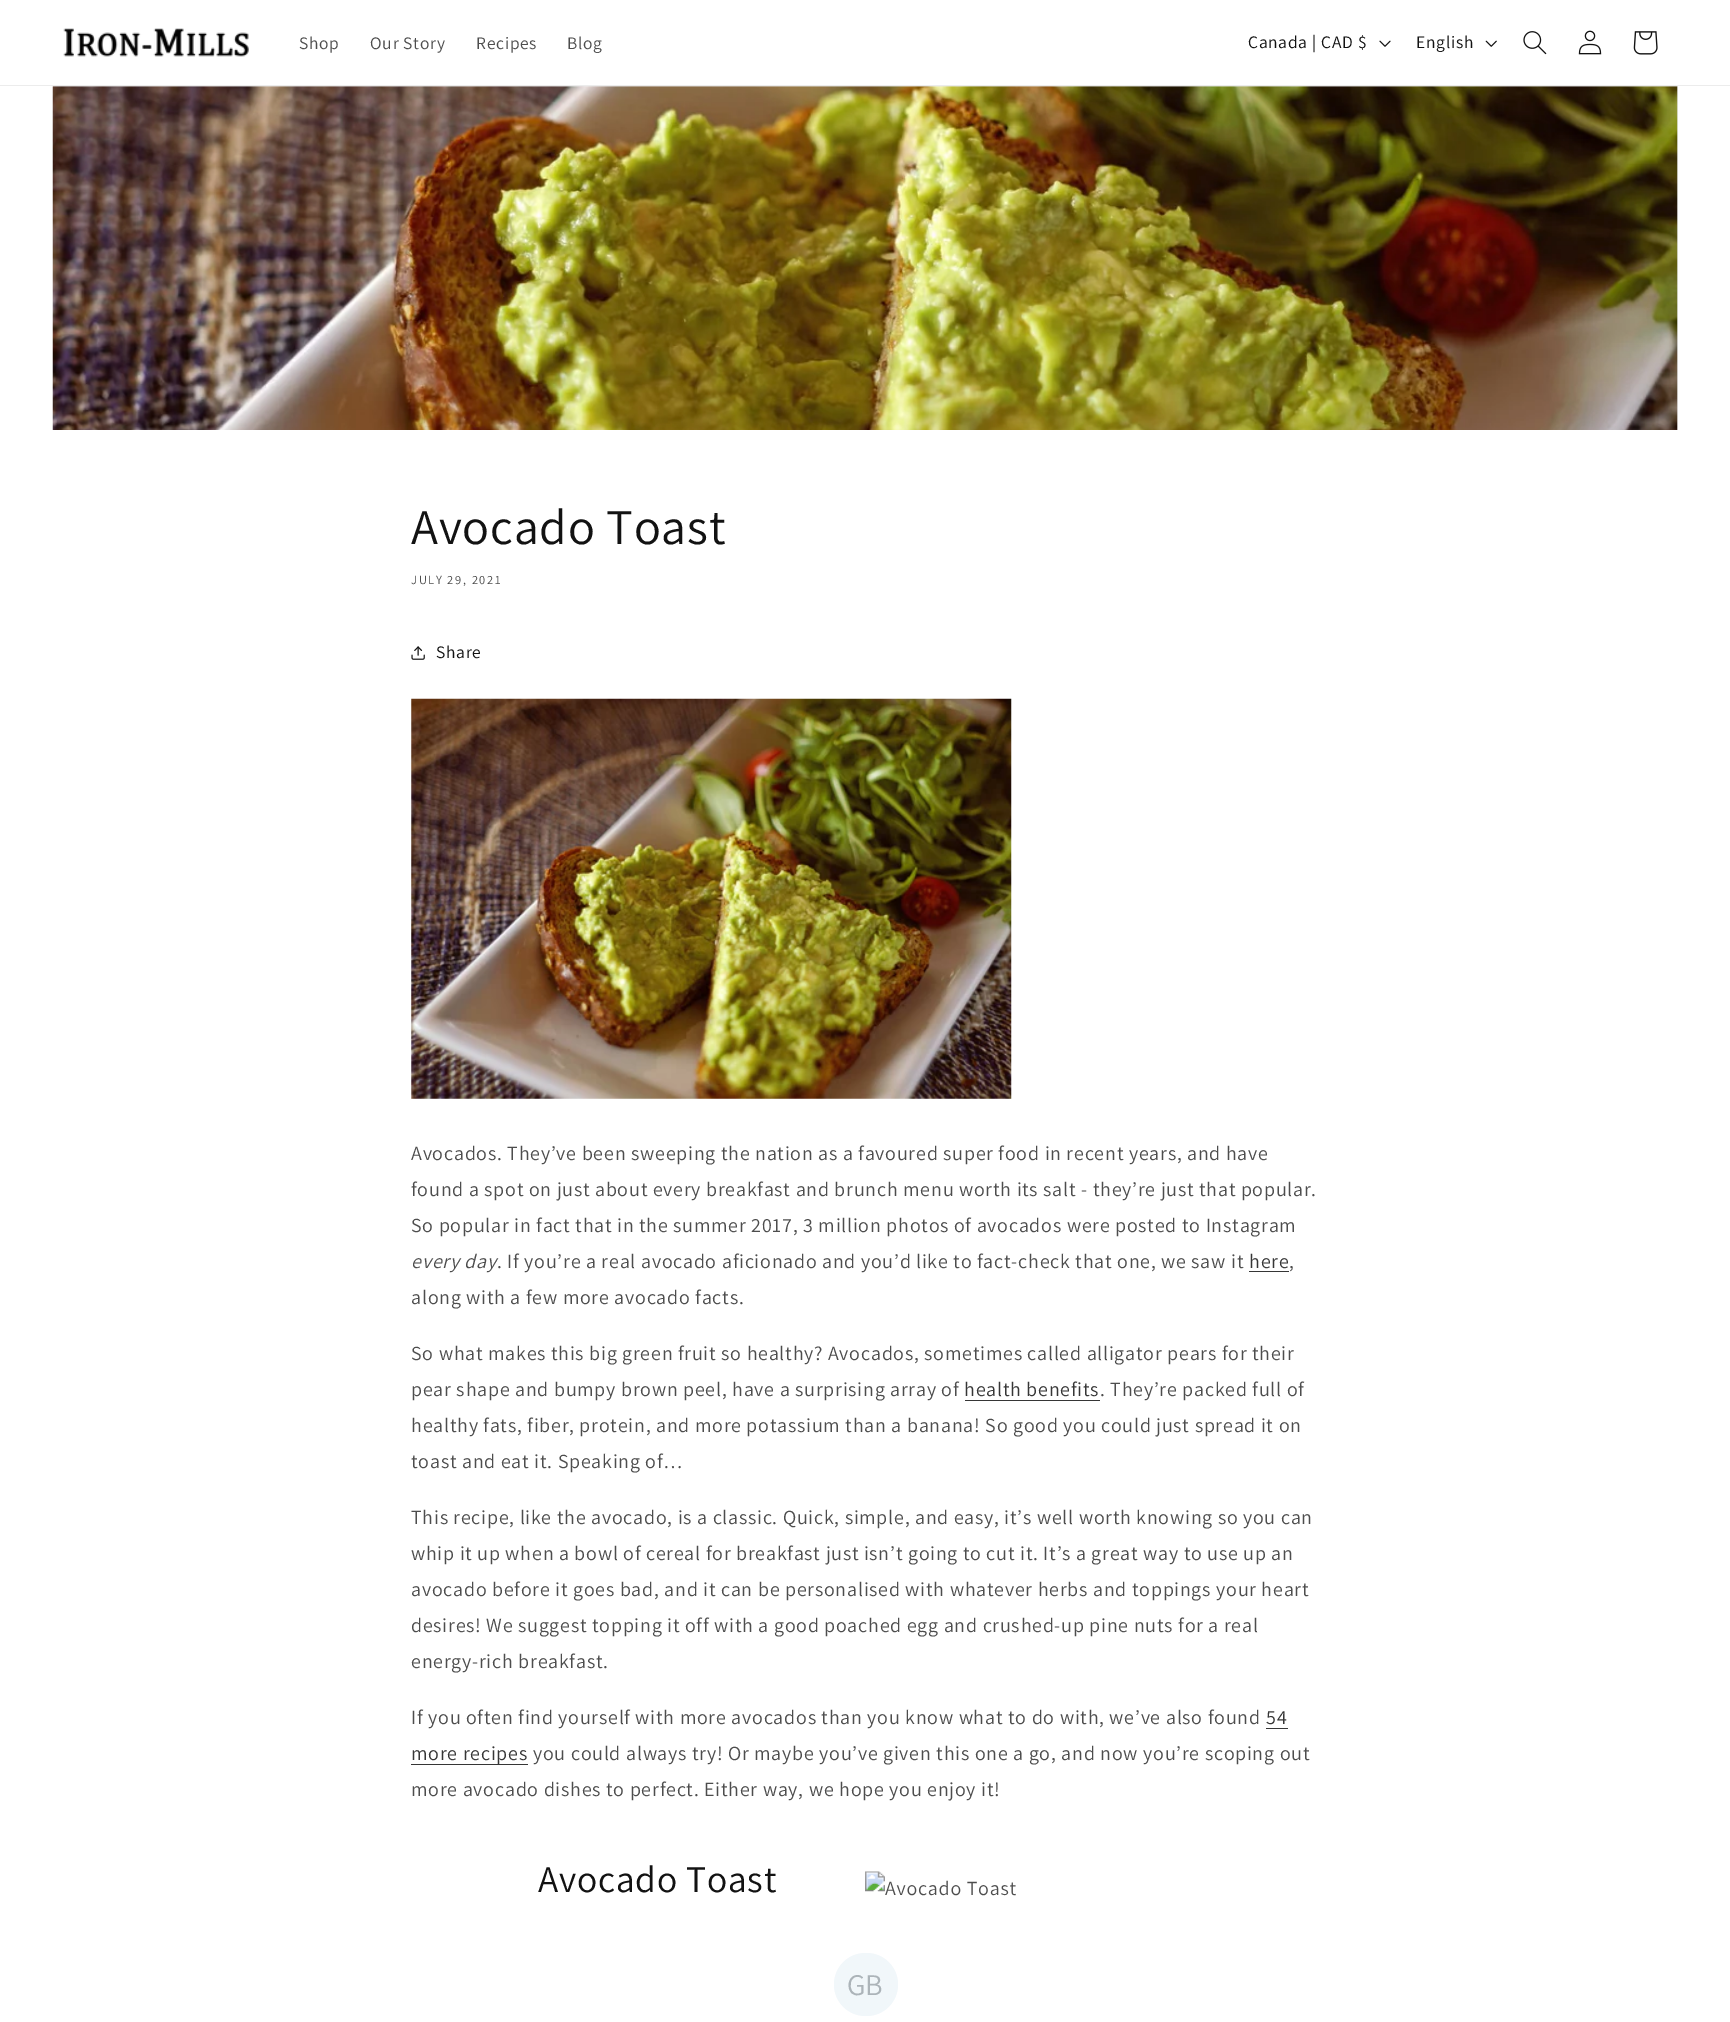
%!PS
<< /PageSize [1730 2022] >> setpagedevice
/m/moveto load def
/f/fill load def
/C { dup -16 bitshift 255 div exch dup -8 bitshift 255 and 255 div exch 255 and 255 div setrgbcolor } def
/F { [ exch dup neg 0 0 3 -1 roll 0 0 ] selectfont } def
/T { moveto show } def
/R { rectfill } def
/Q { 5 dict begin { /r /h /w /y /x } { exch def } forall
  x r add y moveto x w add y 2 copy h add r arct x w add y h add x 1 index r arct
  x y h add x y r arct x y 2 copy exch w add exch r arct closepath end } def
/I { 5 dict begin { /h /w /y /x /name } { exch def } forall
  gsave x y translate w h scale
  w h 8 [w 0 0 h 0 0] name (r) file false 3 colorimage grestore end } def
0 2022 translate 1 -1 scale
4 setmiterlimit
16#FFFFFF C
0 0 1730 2022 R
16#ECECEC C
0 85 1730 1 R
(1.rgb) 63 28 186 29 I
/Assistant-Regular 17.5 F
16#4D4D4D C
299 49 m .75 0 (Shop) ashow
370 49 m .75 0 (Our Story) ashow
476 49 m .75 0 (Recipes) ashow
567 49 m .75 0 (Blog) ashow
16#121212 C
1248 48 m .75 0 (Canada | CAD $) ashow
(2.rgb) 1379 40 12 7 I
1416 48 m .75 0 (English) ashow
(3.rgb) 1485 40 12 7 I
(4.rgb) 1523 31 24 24 I
(5.rgb) 1578 30 24 25 I
(6.rgb) 1633 31 25 24 I
16#E8E8E8 C
53 86 1625 344 R
(7.rgb) 52 86 1626 344 I
/Assistant-Regular 50 F
16#121212 C
411 544 m .75 0 (Avocado Toast) ashow
/Assistant-Regular 12.5 F
16#4D4D4D C
411 584 m 1.6 0 (JULY 29, 2021) ashow
(8.rgb) 411 646 14 14 I
/Assistant-Regular 17.5 F
16#121212 C
436 658 m .75 0 (Share) ashow
(9.rgb) 411 698 601 401 I
/Assistant-Regular 20 F
16#4D4D4D C
411 1160 m .75 0 (Avocados. They’ve been sweeping the nation as a favoured super food in recent years, and have) ashow
411 1196 m .75 0 (found a spot on just about every breakfast and brunch menu worth its salt - they’re just that popular.) ashow
411 1232 m .75 0 (So popular in fact that in the summer 2017, 3 million photos of avocados were posted to Instagram) ashow
/Assistant-Italic 20 F
411 1268 m .75 0 (every day) ashow
/Assistant-Regular 20 F
497 1268 m .75 0 (. If you’re a real avocado aficionado and you’d like to fact-check that one, we saw it) ashow
16#363636 C
1249 1268 m .75 0 (here) ashow
16#4D4D4D C
1289 1268 m .75 0 (,) ashow
16#363636 C
1249 1271 40 1 R
16#4D4D4D C
411 1304 m .75 0 (along with a few more avocado facts.) ashow
411 1360 m .75 0 (So what makes this big green fruit so healthy? Avocados, sometimes called alligator pears for their) ashow
411 1396 m .75 0 (pear shape and bumpy brown peel, have a surprising array of) ashow
16#363636 C
964 1396 m .75 0 (health benefits) ashow
965 1400 135 1 R
16#4D4D4D C
1100 1396 m .75 0 (. They’re packed full of) ashow
411 1432 m .75 0 (healthy fats, fiber, protein, and more potassium than a banana! So good you could just spread it on) ashow
411 1468 m .75 0 (toast and eat it. Speaking of…) ashow
411 1524 m .75 0 (This recipe, like the avocado, is a classic. Quick, simple, and easy, it’s well worth knowing so you can) ashow
411 1560 m .75 0 (whip it up when a bowl of cereal for breakfast just isn’t going to cut it. It’s a great way to use up an) ashow
411 1596 m .75 0 (avocado before it goes bad, and it can be personalised with whatever herbs and toppings your heart) ashow
411 1632 m .75 0 (desires! We suggest topping it off with a good poached egg and crushed-up pine nuts for a real) ashow
411 1668 m .75 0 (energy-rich breakfast.) ashow
411 1724 m .75 0 (If you often find yourself with more avocados than you know what to do with, we’ve also found) ashow
16#363636 C
1266 1724 m .75 0 (54) ashow
1266 1728 22 1 R
411 1764 117 1 R
411 1760 m .75 0 (more recipes) ashow
16#4D4D4D C
533 1760 m .75 0 (you could always try! Or maybe you’ve given this one a go, and now you’re scoping out) ashow
411 1796 m .75 0 (more avocado dishes to perfect. Either way, we hope you enjoy it!) ashow
/Assistant-Regular 37.5 F
16#121212 C
538 1892 m .75 0 (Avocado Toast) ashow
(10.rgb) 865 1871 151 25 I
16#F1F7FA C
834 1953 64 63 31.5 Q f
/Assistant-Regular 30 F
16#ACB4B9 C
(GB) 847 1995 T
showpage
